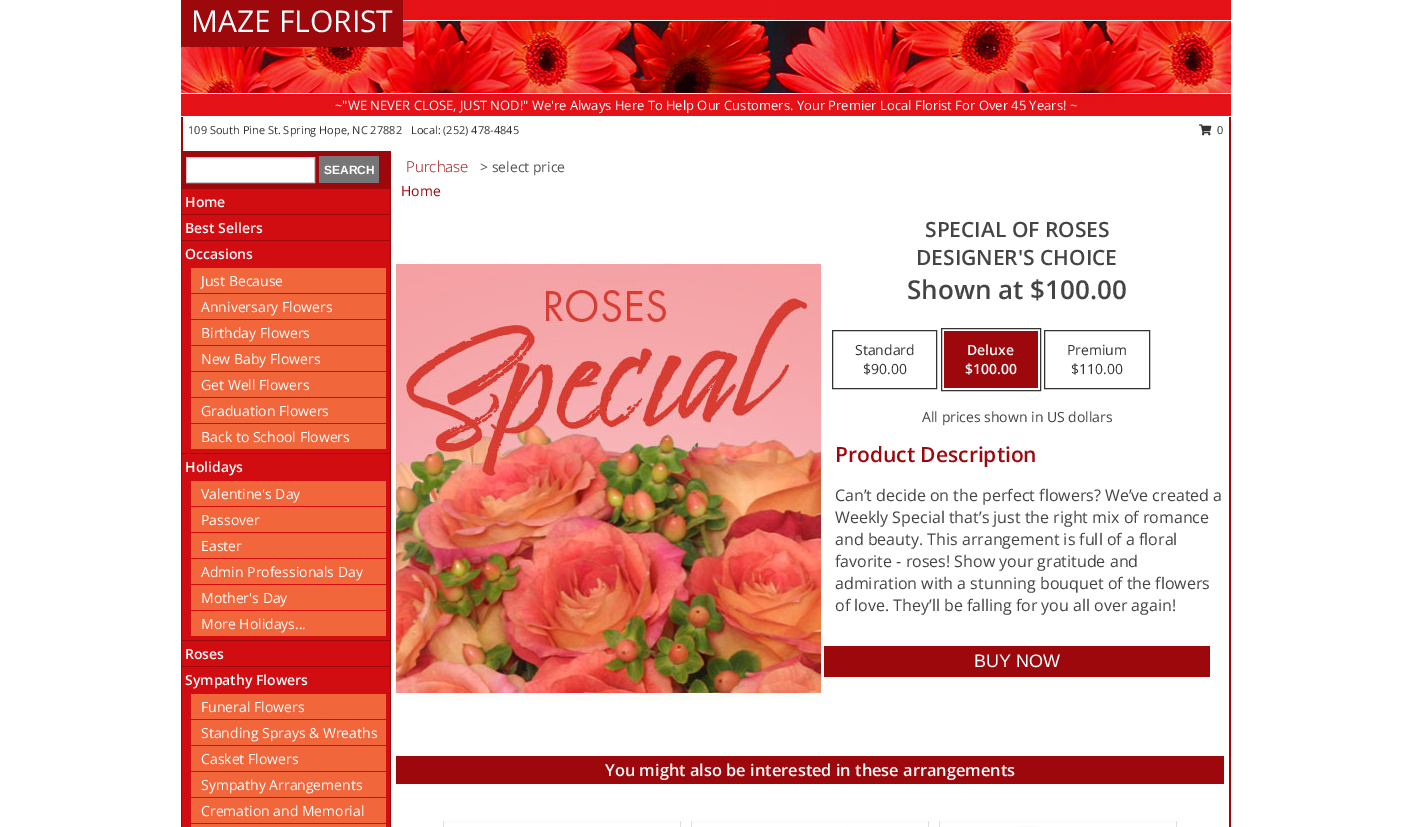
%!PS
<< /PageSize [1412 827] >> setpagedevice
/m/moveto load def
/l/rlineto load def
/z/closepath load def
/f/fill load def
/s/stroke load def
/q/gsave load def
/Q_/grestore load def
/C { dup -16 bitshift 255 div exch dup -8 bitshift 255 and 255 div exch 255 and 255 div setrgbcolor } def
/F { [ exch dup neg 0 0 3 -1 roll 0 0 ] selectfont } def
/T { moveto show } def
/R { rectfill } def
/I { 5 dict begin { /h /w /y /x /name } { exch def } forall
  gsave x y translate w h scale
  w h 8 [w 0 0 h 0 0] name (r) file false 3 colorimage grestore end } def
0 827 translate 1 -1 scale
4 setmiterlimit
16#FFFFFF C
0 0 1412 827 R
(1.rgb) 181 0 1050 116 I
16#9D080D C
181 0 222 47 R
/OpenSans-Regular 30 F
16#FFFFFF C
(MAZE FLORIST) 191 32 T
/OpenSans-Regular 13 F
(~"WE NEVER CLOSE, JUST NOD!" We're Always Here To Help Our Customers. Your Premier Local Florist For Over 45 Years! ~) 335 110 T
16#9D080D C
1229 117 2 34 R
181 117 2 34 R
/OpenSans-Regular 11 F
16#333333 C
(109 South Pine St. Spring Hope, NC 27882) 188 134 T
(Local: \(252\) 478-4845) 411 134 T
(2.rgb) 1199 124 13 12 I
1217 134 m 1 0 (0) ashow
16#9D080D C
181 151 1050 676 R
16#FFFFFF C
186.5 157.5 m 128 0 l 0 25 l -128 0 l z q f Q_
16#CCCCCC C
s
16#767676 C
319 156 60 27 R
/LiberationSans-Bold 12 F
16#FFFFFF C
(SEARCH) 324 174 T
16#D10D11 C
182 189 208 25 R
/OpenSans-SemiBold 14 F
16#FFFFFF C
(Home) 185 207 T
16#D10D11 C
182 215 208 25 R
16#FFFFFF C
(Best Sellers) 185 233 T
16#D10D11 C
182 241 208 212 R
16#FFFFFF C
(Occasions) 185 259 T
16#F2663B C
191 268 195 25 R
/OpenSans-Regular 14 F
16#FFFFFF C
(Just Because) 201 286 T
16#F2663B C
191 294 195 25 R
16#FFFFFF C
(Anniversary Flowers) 201 312 T
16#F2663B C
191 320 195 25 R
16#FFFFFF C
(Birthday Flowers) 201 338 T
16#F2663B C
191 346 195 25 R
16#FFFFFF C
(New Baby Flowers) 201 364 T
16#F2663B C
191 372 195 25 R
16#FFFFFF C
(Get Well Flowers) 201 390 T
16#F2663B C
191 398 195 25 R
16#FFFFFF C
(Graduation Flowers) 201 416 T
16#F2663B C
191 424 195 25 R
16#FFFFFF C
(Back to School Flowers) 201 442 T
16#D10D11 C
182 454 208 186 R
/OpenSans-SemiBold 14 F
16#FFFFFF C
(Holidays) 185 472 T
16#F2663B C
191 481 195 25 R
/OpenSans-Regular 14 F
16#FFFFFF C
(Valentine's Day) 201 499 T
16#F2663B C
191 507 195 25 R
16#FFFFFF C
(Passover) 201 525 T
16#F2663B C
191 533 195 25 R
16#FFFFFF C
(Easter) 201 551 T
16#F2663B C
191 559 195 25 R
16#FFFFFF C
(Admin Professionals Day) 201 577 T
16#F2663B C
191 585 195 25 R
16#FFFFFF C
(Mother's Day) 201 603 T
16#F2663B C
191 611 195 25 R
16#FFFFFF C
(More Holidays...) 201 629 T
16#D10D11 C
182 641 208 25 R
/OpenSans-SemiBold 14 F
16#FFFFFF C
(Roses) 185 659 T
16#D10D11 C
182 667 208 160 R
16#FFFFFF C
(Sympathy Flowers) 185 685 T
16#F2663B C
191 694 195 25 R
/OpenSans-Regular 14 F
16#FFFFFF C
(Funeral Flowers) 201 712 T
16#F2663B C
191 720 195 25 R
16#FFFFFF C
(Standing Sprays & Wreaths) 201 738 T
16#F2663B C
191 746 195 25 R
16#FFFFFF C
(Casket Flowers) 201 764 T
16#F2663B C
191 772 195 25 R
16#FFFFFF C
(Sympathy Arrangements) 201 790 T
16#F2663B C
191 798 195 25 R
16#FFFFFF C
(Cremation and Memorial) 201 816 T
16#F2663B C
191 824 195 3 R
16#FFFFFF C
391 151 838 676 R
/OpenSans-Light 15 F
16#9D080D C
(Purchase) 406 172 T
/OpenSans-Regular 14 F
16#535353 C
(> select price) 480 172 T
16#9D080D C
(Home) 401 196 T
(3.rgb) 396 260 425 440 I
/OpenSans-SemiBold 21 F
16#444444 C
(SPECIAL OF ROSES) 925 237 T
(DESIGNER'S CHOICE) 916 265 T
/OpenSans-SemiBold 26 F
(Shown at $100.00) 907 299 T
16#333333 C
832.5 330.5 104 58 rectstroke
/OpenSans-Regular 14 F
(Standard) 855 355 T
($90.00) 863 374 T
941.5 328.5 99 62 rectstroke
16#9D080D C
944 331 94 57 R
/OpenSans-SemiBold 14 F
16#FFFFFF C
(Deluxe) 967 355 T
($100.00) 965 374 T
16#333333 C
1044.5 330.5 105 58 rectstroke
/OpenSans-Regular 14 F
(Premium) 1067 355 T
($110.00) 1071 374 T
16#444444 C
(All prices shown in US dollars) 922 422 T
/OpenSans-SemiBold 21 F
16#9D080D C
(Product Description) 835 462 T
/OpenSans-Regular 16 F
16#444444 C
(Can’t decide on the perfect flowers? We’ve created a) 835 501 T
(Weekly Special that’s just the right mix of romance) 835 523 T
(and beauty. This arrangement is full of a floral) 835 545 T
(favorite - roses! Show your gratitude and) 835 567 T
(admiration with a stunning bouquet of the flowers) 835 589 T
(of love. They’ll be falling for you all over again!) 835 611 T
16#9D080D C
824 646 386 31 R
/LiberationSans-Regular 18 F
16#FFFFFF C
(BUY NOW) 974 667 T
16#9D080D C
396 756 828 28 R
/OpenSans-SemiBold 16.4 F
16#FFFFFF C
(You might also be interested in these arrangements) 605 776 T
16#F9F9F9 C
443 821 238 1 R
16#E2DEDD C
680 821 1 6 R
443 821 1 6 R
16#F9F9F9 C
691 821 238 1 R
16#E2DEDD C
928 821 1 6 R
691 821 1 6 R
16#FFFFFA C
845 826 6 1 R
16#F9F9F9 C
939 821 238 1 R
16#E2DEDD C
1176 821 1 6 R
939 821 1 6 R
16#FBFAFB C
1018 826 20 1 R
showpage
